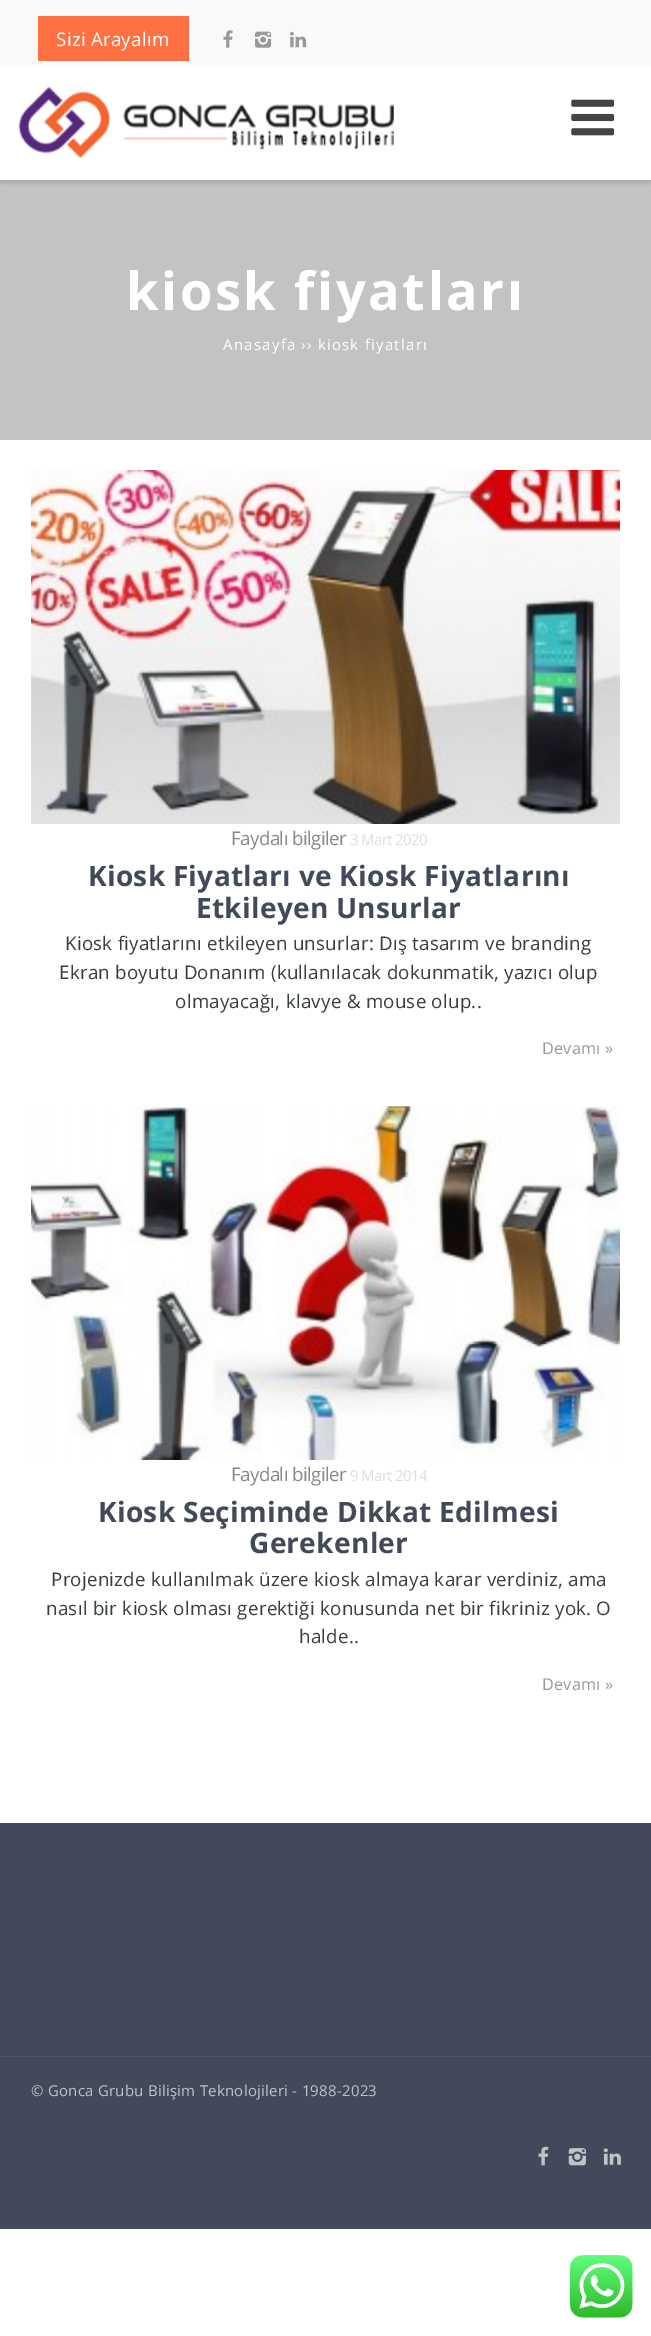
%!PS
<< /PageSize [651 2336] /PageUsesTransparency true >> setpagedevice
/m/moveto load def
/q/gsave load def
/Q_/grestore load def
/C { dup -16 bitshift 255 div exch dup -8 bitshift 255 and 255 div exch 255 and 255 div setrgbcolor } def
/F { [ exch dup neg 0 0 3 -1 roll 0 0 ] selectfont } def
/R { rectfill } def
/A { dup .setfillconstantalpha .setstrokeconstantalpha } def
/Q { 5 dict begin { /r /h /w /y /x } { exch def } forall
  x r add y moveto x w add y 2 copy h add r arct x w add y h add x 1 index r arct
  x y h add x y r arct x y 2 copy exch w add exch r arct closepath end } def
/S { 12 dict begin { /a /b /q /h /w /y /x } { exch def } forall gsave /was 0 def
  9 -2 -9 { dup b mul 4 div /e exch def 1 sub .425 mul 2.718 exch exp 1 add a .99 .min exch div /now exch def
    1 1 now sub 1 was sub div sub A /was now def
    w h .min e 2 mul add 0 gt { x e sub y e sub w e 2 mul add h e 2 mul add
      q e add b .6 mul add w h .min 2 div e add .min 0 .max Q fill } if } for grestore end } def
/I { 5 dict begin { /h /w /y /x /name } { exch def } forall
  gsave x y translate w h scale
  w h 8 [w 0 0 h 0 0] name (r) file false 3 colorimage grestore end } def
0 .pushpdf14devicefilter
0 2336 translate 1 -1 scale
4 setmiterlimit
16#FFFFFF C
0 0 651 2336 R
16#C3C3C3 C
0 180 651 260 R
q
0 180 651 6 rectclip
16#000000 C
0 1 651 180 0 4 .2 S
Q_
16#F9F9F9 C
0 0 651 66 R
16#FF7142 C
38 16 151 45 R
/OpenSans-Regular 18.75 F
16#FFFFFF C
56 46 m .25 0 (Sizi Arayalım) ashow
(1.rgb) 223 30 10 18 I
(2.rgb) 255 31 17 17 I
(3.rgb) 290 31 17 17 I
(4.rgb) 18 87 376 72 I
(5.rgb) 571 99 44 37 I
/OpenSans-Bold 52.5 F
126 310 m 2.5 0 (kiosk fiyatları) ashow
/OpenSans-Regular 15 F
223 350 m 1.25 0 (Anasayfa) ashow
301 350 m 1.25 0 (›› kiosk fiyatları) ashow
(6.rgb) 31 470 589 354 I
/OpenSans-Regular 18.75 F
16#888888 C
231 845 m -.6 0 (Faydalı bilgiler) ashow
/OpenSans-Regular 15 F
16#DDDDDD C
350 845 m -.6 0 (3 Mart 2020) ashow
/OpenSans-Bold 28.1 F
16#41495B C
88 886 m .25 0 (Kiosk Fiyatları ve Kiosk Fiyatlarını) ashow
196 918 m .25 0 (Etkileyen Unsurlar) ashow
/OpenSans-Regular 18.75 F
16#383F42 C
65 950 m .25 0 (Kiosk fiyatlarını etkileyen unsurlar: Dış tasarım ve branding) ashow
59 979 m .25 0 (Ekran boyutu Donanım \(kullanılacak dokunmatik, yazıcı olup) ashow
175 1008 m .25 0 (olmayacağı, klavye & mouse olup..) ashow
/OpenSans-Regular 16.25 F
16#999999 C
542 1054 m .25 0 (Devamı ») ashow
(7.rgb) 31 1106 589 354 I
/OpenSans-Regular 18.75 F
16#888888 C
231 1481 m -.6 0 (Faydalı bilgiler) ashow
/OpenSans-Regular 15 F
16#DDDDDD C
350 1481 m -.6 0 (9 Mart 2014) ashow
/OpenSans-Bold 28.1 F
16#41495B C
98 1522 m .25 0 (Kiosk Seçiminde Dikkat Edilmesi) ashow
249 1553 m .25 0 (Gerekenler) ashow
/OpenSans-Regular 18.75 F
16#383F42 C
51 1586 m .25 0 (Projenizde kullanılmak üzere kiosk almaya karar verdiniz, ama) ashow
46 1615 m .25 0 (nasıl bir kiosk olması gerektiği konusunda net bir fikriniz yok. O) ashow
299 1643 m .25 0 (halde..) ashow
/OpenSans-Regular 16.25 F
16#999999 C
542 1690 m .25 0 (Devamı ») ashow
16#41495B C
0 1823 651 406 R
16#4C5465 C
0 2056 651 1 R
/OpenSans-Regular 15 F
16#C1C2C7 C
31 2096 m .25 0 (© Gonca Grubu Bilişim Teknolojileri - 1988-2023) ashow
(8.rgb) 538 2146 11 20 I
(9.rgb) 568 2148 18 18 I
(10.rgb) 603 2148 18 17 I
(11.rgb) 570 2255 63 63 I
.poppdf14devicefilter showpage
